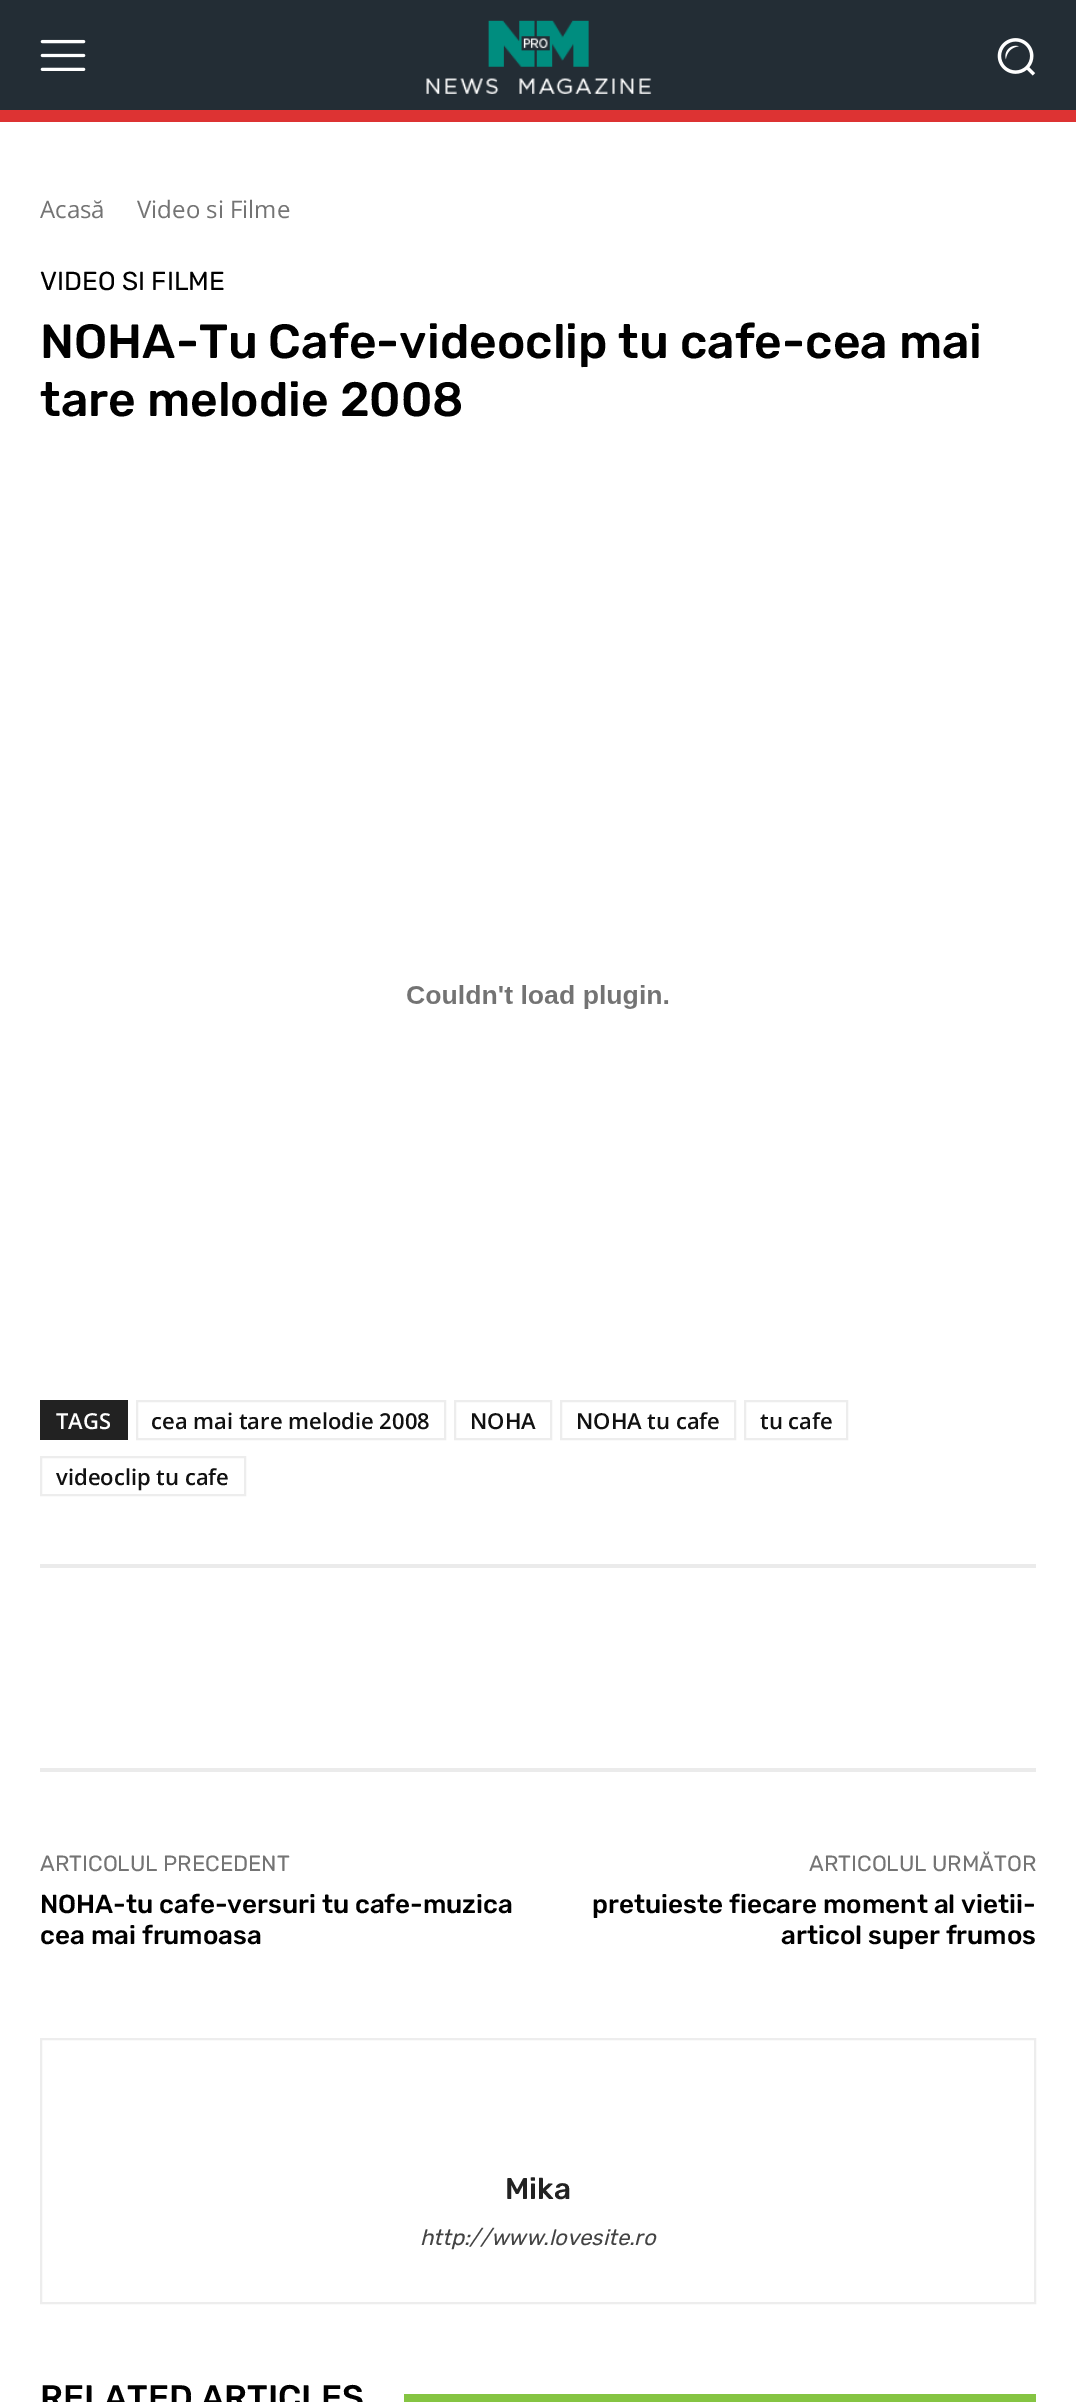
%!PS
<< /PageSize [1076 2402] >> setpagedevice
/w/setlinewidth load def
/C { dup -16 bitshift 255 div exch dup -8 bitshift 255 and 255 div exch 255 and 255 div setrgbcolor } def
/F { [ exch dup neg 0 0 3 -1 roll 0 0 ] selectfont } def
/T { moveto show } def
/R { rectfill } def
/I { 5 dict begin { /h /w /y /x /name } { exch def } forall
  gsave x y translate w h scale
  w h 8 [w 0 0 h 0 0] name (r) file false 3 colorimage grestore end } def
0 2402 translate 1 -1 scale
4 setmiterlimit
16#FFFFFF C
0 0 1076 2402 R
16#232D35 C
0 0 1076 110 R
(1.rgb) 40 39 46 32 I
(2.rgb) 426 20 226 74 I
(3.rgb) 997 38 39 38 I
16#DD3333 C
0 110 1076 12 R
/OpenSans-Regular 24 F
16#747474 C
(Acasă) 40 218 T
(Video si Filme) 137 218 T
/Rubik-Regular 26 F
16#000000 C
(VIDEO SI FILME) 40 290 T
/Rubik-Medium 48 F
(NOHA-Tu Cafe-videoclip tu cafe-cea mai) 40 358 T
(tare melodie 2008) 40 416 T
(4.rgb) 407 985 262 24 I
16#222222 C
40 1400 88 40 R
/OpenSans-SemiBold 22 F
16#FFFFFF C
(TAGS) 56 1429 T
16#EDEDED C
2 w
137 1401 308 38 rectstroke
16#111111 C
(cea mai tare melodie 2008) 151 1429 T
16#EDEDED C
455 1401 96 38 rectstroke
16#111111 C
(NOHA) 470 1429 T
16#EDEDED C
561 1401 174 38 rectstroke
16#111111 C
(NOHA tu cafe) 576 1429 T
16#EDEDED C
745 1401 102 38 rectstroke
16#111111 C
(tu cafe) 760 1429 T
16#EDEDED C
41 1457 204 38 rectstroke
16#111111 C
(videoclip tu cafe) 56 1485 T
16#EBEBEB C
40 1564 996 4 R
40 1768 996 4 R
/Rubik-Regular 22 F
16#747474 C
(ARTICOLUL PRECEDENT) 40 1871 T
/Rubik-Medium 26 F
16#000000 C
(NOHA-tu cafe-versuri tu cafe-muzica) 40 1913 T
(cea mai frumoasa) 40 1944 T
/Rubik-Regular 22 F
16#747474 C
(ARTICOLUL URMĂTOR) 809 1871 T
/Rubik-Medium 26 F
16#000000 C
(pretuieste fiecare moment al vietii-) 592 1913 T
(articol super frumos) 781 1944 T
16#EDEDED C
41 2039 994 264 rectstroke
/Rubik-Medium 30 F
16#222222 C
(Mika) 505 2199 T
/Rubik-Italic 22 F
16#444444 C
(http://www.lovesite.ro) 420 2245 T
/Rubik-Medium 34 F
16#000000 C
(RELATED ARTICLES) 40 2409 T
16#85C442 C
404 2394 632 8 R
showpage
